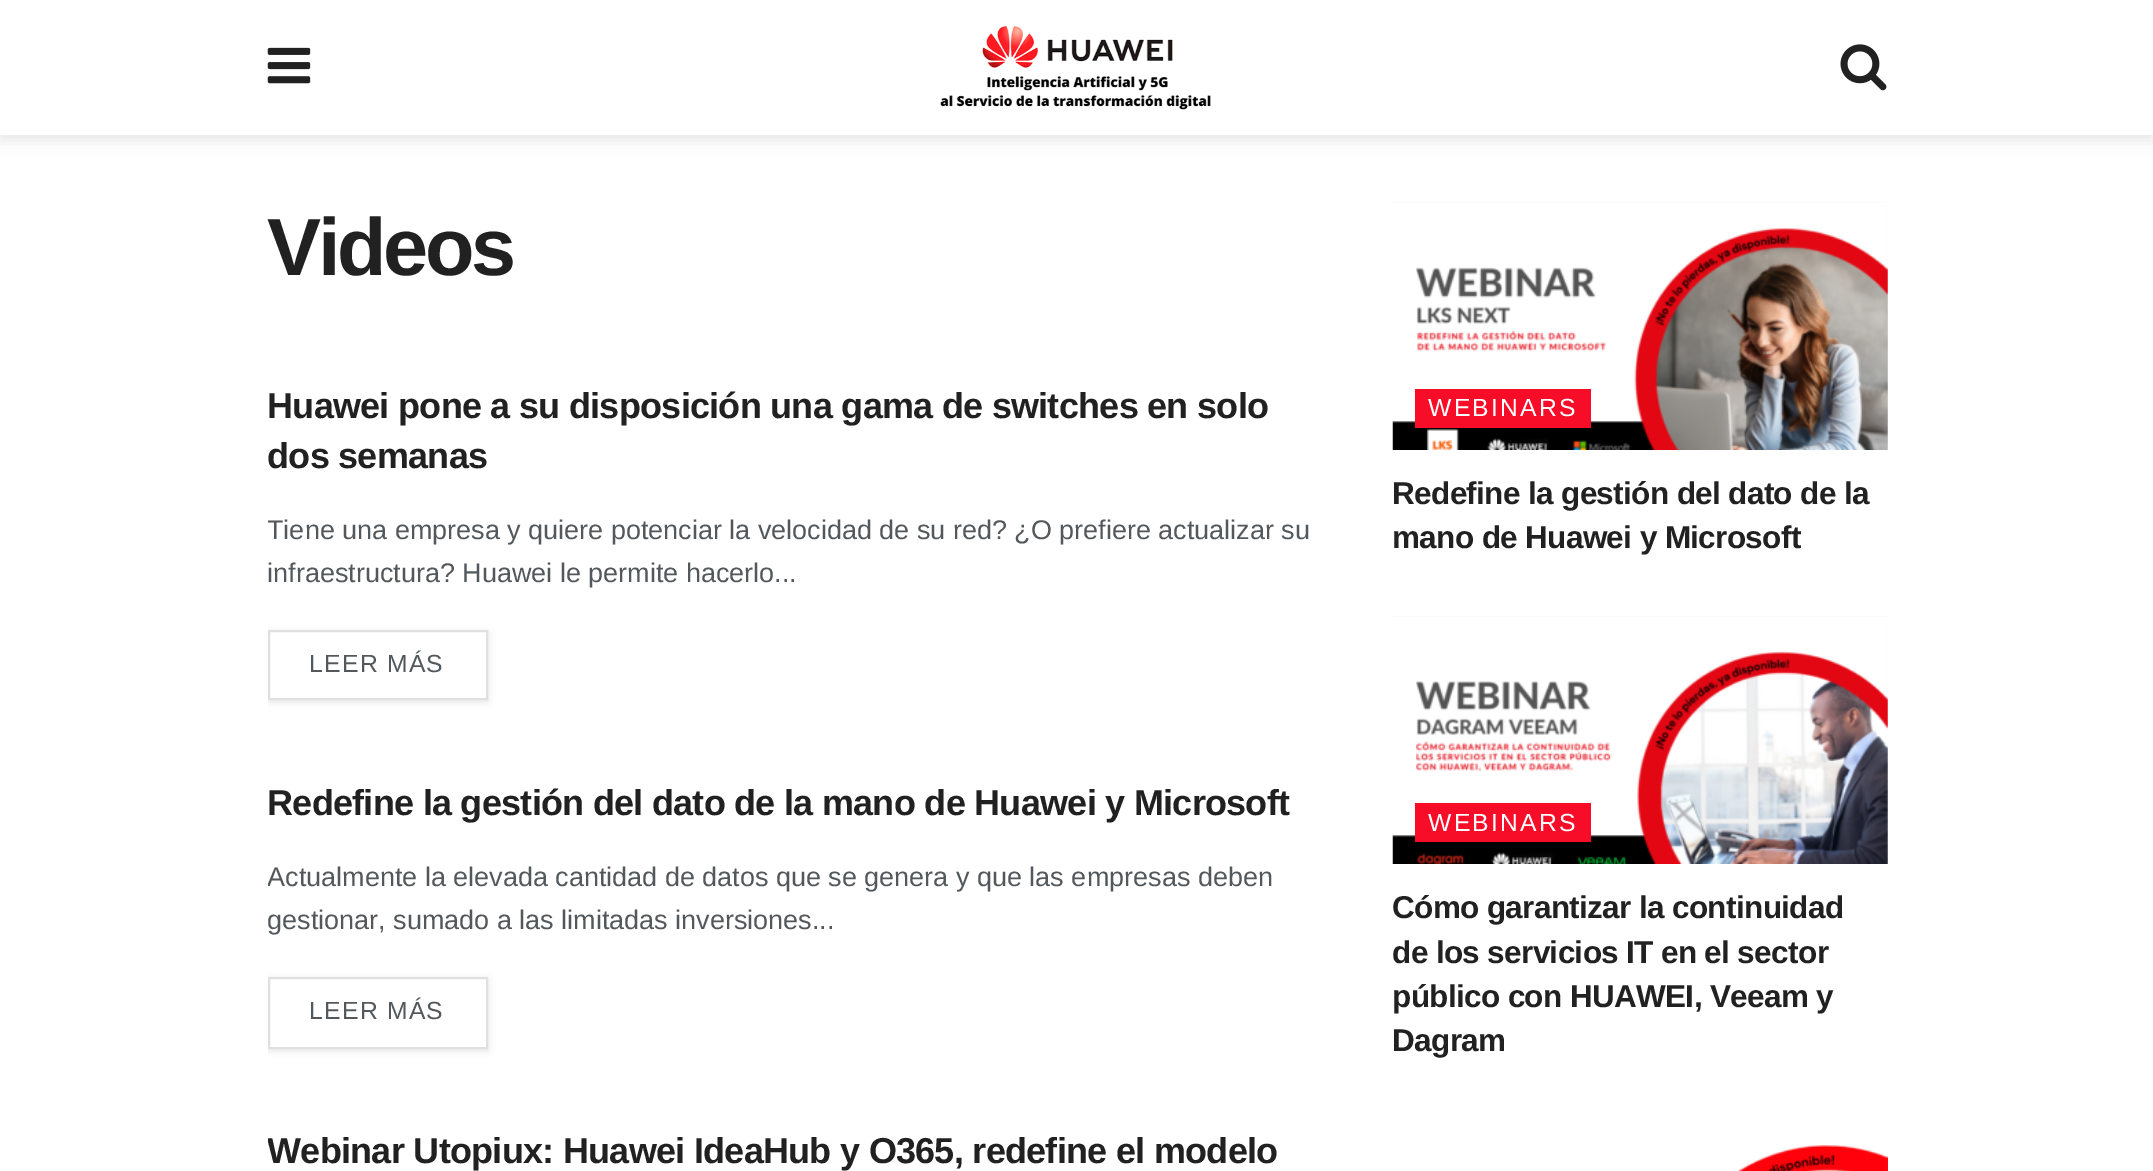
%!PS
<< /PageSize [2153 1171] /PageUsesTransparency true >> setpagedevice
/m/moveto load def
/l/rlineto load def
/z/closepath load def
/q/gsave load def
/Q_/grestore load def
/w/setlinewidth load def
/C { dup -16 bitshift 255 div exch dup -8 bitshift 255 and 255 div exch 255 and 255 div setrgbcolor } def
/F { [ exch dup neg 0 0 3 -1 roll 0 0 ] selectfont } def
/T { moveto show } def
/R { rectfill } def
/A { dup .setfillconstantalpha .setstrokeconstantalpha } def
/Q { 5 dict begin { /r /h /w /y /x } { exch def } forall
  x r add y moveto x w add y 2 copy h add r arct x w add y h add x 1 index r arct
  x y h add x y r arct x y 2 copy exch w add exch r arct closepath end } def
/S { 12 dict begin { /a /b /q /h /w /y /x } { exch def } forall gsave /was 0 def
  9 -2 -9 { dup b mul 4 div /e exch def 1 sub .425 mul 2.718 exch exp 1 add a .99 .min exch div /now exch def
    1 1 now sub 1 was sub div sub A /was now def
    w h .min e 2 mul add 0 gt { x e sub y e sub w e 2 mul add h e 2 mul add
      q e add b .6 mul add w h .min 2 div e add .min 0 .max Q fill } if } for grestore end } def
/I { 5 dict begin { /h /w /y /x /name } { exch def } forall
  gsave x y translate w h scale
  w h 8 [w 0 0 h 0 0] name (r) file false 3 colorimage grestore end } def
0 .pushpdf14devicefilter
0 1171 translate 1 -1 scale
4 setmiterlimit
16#FFFFFF C
0 0 2153 1171 R
16#000000 C
0 5 2153 135 0 7 .1 S
16#FFFFFF C
0 0 2153 135 R
(1.rgb) 267 47 44 37 I
(2.rgb) 940 26 271 84 I
(3.rgb) 1840 44 47 47 I
/LiberationSans-Bold 81 F
16#212121 C
267 275 m -3.25 0 (Videos) ashow
/LiberationSans-Bold 36 F
267 418 m -.72 0 (Huawei pone a su disposición una gama de switches en solo) ashow
267 468 m -.72 0 (dos semanas) ashow
q
268 383 1057 328 rectclip
/LiberationSans-Regular 27 F
16#53585C C
(Tiene una empresa y quiere potenciar la velocidad de su red? ¿O prefiere actualizar su) 267 539 T
Q_
/LiberationSans-Regular 27 F
16#53585C C
(infraestructura? Huawei le permite hacerlo...) 267 582 T
q
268 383 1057 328 rectclip
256 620 m 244 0 l 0 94 l -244 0 l z 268 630 m 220 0 l 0 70 l -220 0 l z eoclip newpath
16#000000 C
268 632 220 70 0 3.5 .1 S
Q_
16#E0E0E0 C
2 w
269 631 218 68 rectstroke
/LiberationSans-Regular 24.75 F
16#53585C C
309 672 m 1.25 0 (LEER MÁS) ashow
/LiberationSans-Bold 36 F
16#212121 C
267 815 m -.72 0 (Redefine la gestión del dato de la mano de Huawei y Microsoft) ashow
q
268 779 1057 281 rectclip
/LiberationSans-Regular 27 F
16#53585C C
(Actualmente la elevada cantidad de datos que se genera y que las empresas deben) 267 886 T
(gestionar, sumado a las limitadas inversiones...) 267 929 T
Q_
q
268 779 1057 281 rectclip
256 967 m 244 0 l 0 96 l -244 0 l z 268 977 m 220 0 l 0 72 l -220 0 l z eoclip newpath
16#000000 C
268 979 220 72 0 3.5 .1 S
Q_
16#E0E0E0 C
269 978 218 70 rectstroke
/LiberationSans-Regular 24.75 F
16#53585C C
309 1019 m 1.25 0 (LEER MÁS) ashow
q
268 1127 1057 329 rectclip
/LiberationSans-Bold 36 F
16#212121 C
267 1163 m -.72 0 (Webinar Utopiux: Huawei IdeaHub y O365, redefine el modelo) ashow
Q_
16#FBFBFB C
1393 202 494 1 R
(4.rgb) 1392 203 496 247 I
16#F70D28 C
1415 389 176 39 R
16#FFFFFF C
1428 416 m 2.25 0 (WEBINARS) ashow
/LiberationSans-Bold 31.5 F
16#212121 C
1392 504 m -.65 0 (Redefine la gestión del dato de la) ashow
1392 548 m -.65 0 (mano de Huawei y Microsoft) ashow
16#FBFBFB C
1393 616 494 1 R
(5.rgb) 1392 617 496 247 I
16#F70D28 C
1415 803 176 39 R
/LiberationSans-Regular 24.75 F
16#FFFFFF C
1428 831 m 2.25 0 (WEBINARS) ashow
/LiberationSans-Bold 31.5 F
16#212121 C
1392 918 m -.65 0 (Cómo garantizar la continuidad) ashow
1392 963 m -.65 0 (de los servicios IT en el sector) ashow
1392 1007 m -.65 0 (público con HUAWEI, Veeam y) ashow
1392 1051 m -.65 0 (Dagram) ashow
(6.rgb) 1393 1120 495 51 I
.poppdf14devicefilter showpage
